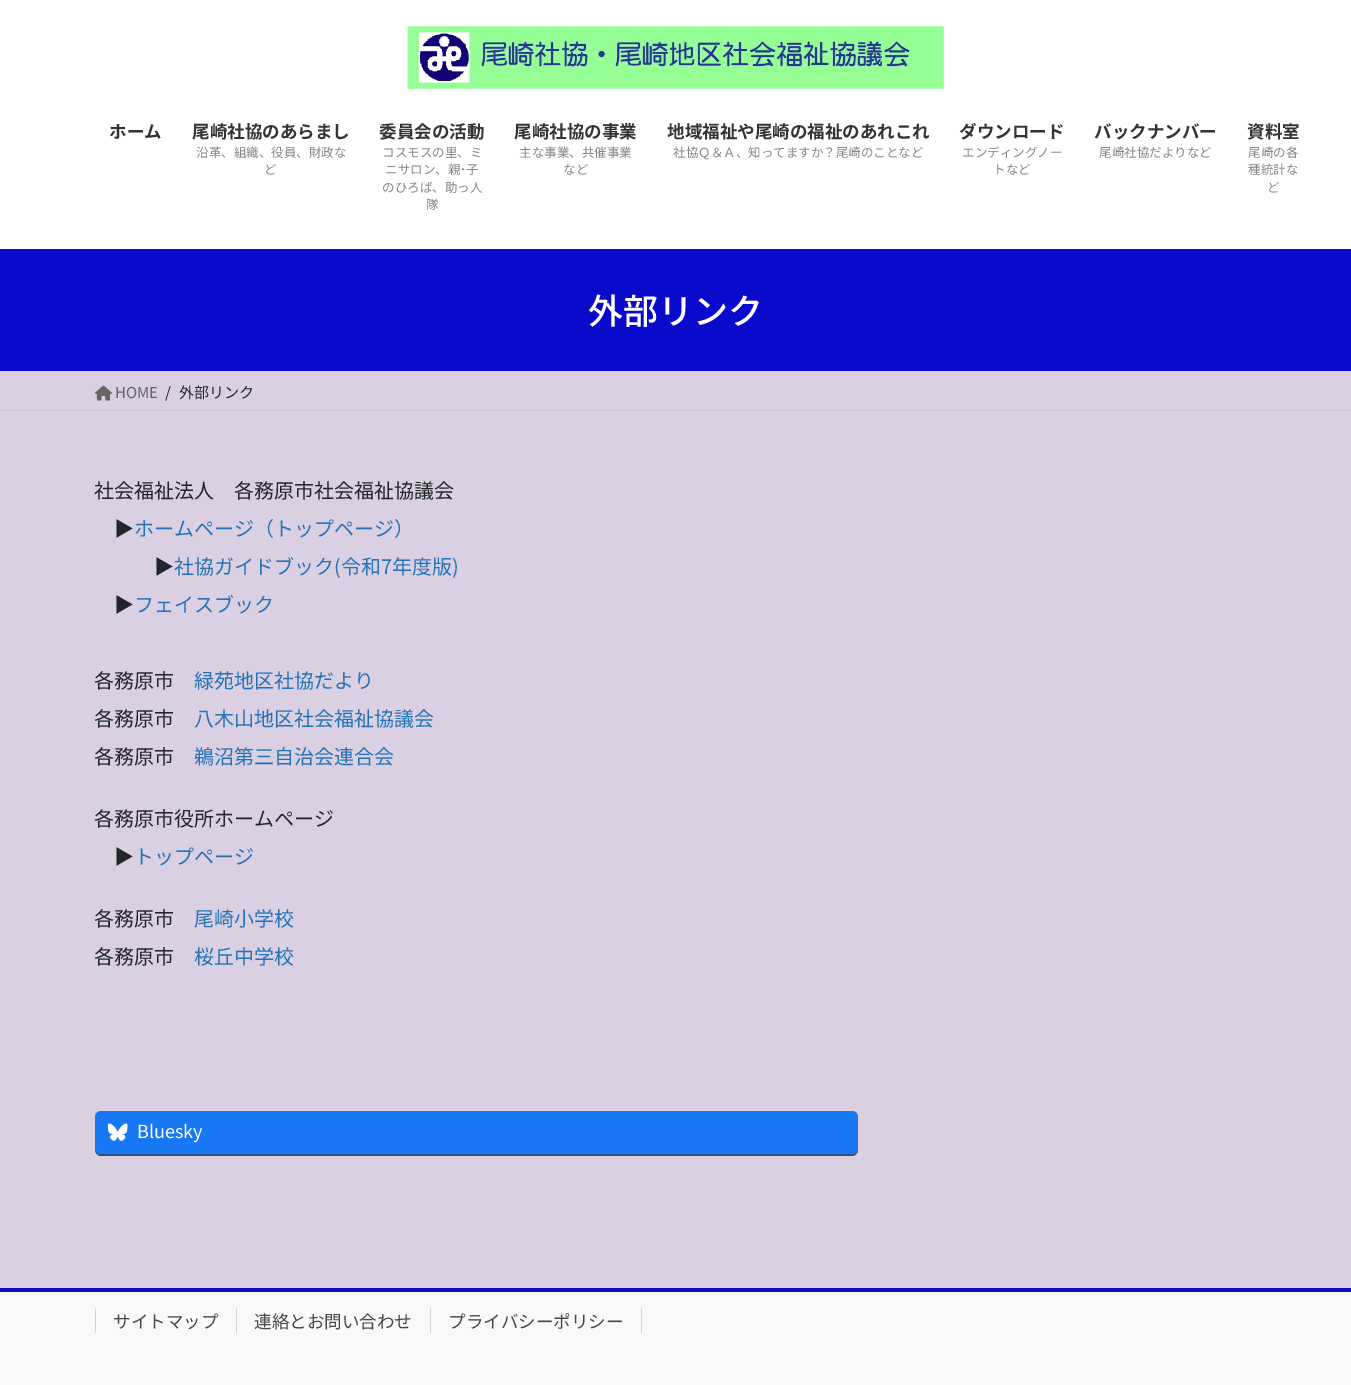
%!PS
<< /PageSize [1351 1385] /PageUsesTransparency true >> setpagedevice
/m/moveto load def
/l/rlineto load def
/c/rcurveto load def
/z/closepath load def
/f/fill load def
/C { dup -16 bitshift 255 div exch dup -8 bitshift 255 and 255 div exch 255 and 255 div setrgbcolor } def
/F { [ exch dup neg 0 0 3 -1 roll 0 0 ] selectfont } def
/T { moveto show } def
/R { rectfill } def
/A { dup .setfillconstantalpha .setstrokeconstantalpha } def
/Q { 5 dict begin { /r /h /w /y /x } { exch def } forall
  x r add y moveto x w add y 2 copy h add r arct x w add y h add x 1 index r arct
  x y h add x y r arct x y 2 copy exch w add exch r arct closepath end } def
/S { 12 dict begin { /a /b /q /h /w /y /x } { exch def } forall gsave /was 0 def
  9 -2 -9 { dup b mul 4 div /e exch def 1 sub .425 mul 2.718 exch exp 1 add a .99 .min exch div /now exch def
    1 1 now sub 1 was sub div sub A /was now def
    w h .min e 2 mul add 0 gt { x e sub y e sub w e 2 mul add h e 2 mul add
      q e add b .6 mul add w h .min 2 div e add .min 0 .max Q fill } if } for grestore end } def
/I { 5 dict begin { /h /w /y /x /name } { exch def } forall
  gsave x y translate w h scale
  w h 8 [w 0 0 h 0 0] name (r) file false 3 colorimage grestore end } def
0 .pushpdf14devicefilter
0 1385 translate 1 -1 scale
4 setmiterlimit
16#DAD0E2 C
0 0 1351 1385 R
16#0A0ACC C
0 249 1351 122 R
16#000000 C
0 1 1351 249 0 2 .1 S
16#FFFFFF C
0 0 1351 249 R
(1.rgb) 407 26 537 63 I
/NotoSansJP-Bold 17.5 F
16#333333 C
(ホーム) 109 138 T
(尾崎社協のあらまし) 192 138 T
/NotoSansJP-Regular 12.5 F
16#858585 C
(沿革、組織、役員、財政な) 196 157 T
(ど) 264 174 T
/NotoSansJP-Bold 17.5 F
16#333333 C
(委員会の活動) 379 138 T
/NotoSansJP-Regular 12.5 F
16#858585 C
(コスモスの里、ミ) 382 157 T
(ニサロン、親･子) 385 174 T
(のひろば、助っ人) 382 192 T
(隊) 426 209 T
/NotoSansJP-Bold 17.5 F
16#333333 C
(尾崎社協の事業) 514 138 T
/NotoSansJP-Regular 12.5 F
16#858585 C
(主な事業、共催事業) 519 157 T
(など) 563 174 T
/NotoSansJP-Bold 17.5 F
16#333333 C
(地域福祉や尾崎の福祉のあれこれ) 667 138 T
/NotoSansJP-Regular 12.5 F
16#858585 C
(社協Ｑ＆Ａ、知ってますか？尾崎のことなど) 673 157 T
/NotoSansJP-Bold 17.5 F
16#333333 C
(ダウンロード) 959 138 T
/NotoSansJP-Regular 12.5 F
16#858585 C
(エンディングノー) 962 157 T
(トなど) 993 174 T
/NotoSansJP-Bold 17.5 F
16#333333 C
(バックナンバー) 1094 138 T
/NotoSansJP-Regular 12.5 F
16#858585 C
(尾崎社協だよりなど) 1099 157 T
/NotoSansJP-Bold 17.5 F
16#333333 C
(資料室) 1247 138 T
/NotoSansJP-Regular 12.5 F
16#858585 C
(尾崎の各) 1248 157 T
(種統計な) 1248 174 T
(ど) 1267 192 T
/NotoSansJP-Medium 35 F
16#FFFFFF C
(外部リンク) 588 324 T
16#CFC6D7 C
0 410 1351 1 R
(2.rgb) 95 385 17 16 I
/NotoSansJP-Regular 15 F
16#666666 C
(HOME) 115 398 T
16#212529 C
(/) 165 398 T
(外部リンク) 179 398 T
/NotoSansJP-Regular 20 F
(社会福祉法人　各務原市社会福祉協議会) 94 498 T
(▶) 114 536 T
16#2473B7 C
(ホームページ（トップページ）) 134 536 T
16#212529 C
(▶) 154 574 T
16#2473B7 C
(社協ガイドブック\(令和7年度版\)) 174 574 T
16#212529 C
(▶) 114 612 T
16#2473B7 C
(フェイスブック) 134 612 T
16#212529 C
(各務原市) 94 688 T
16#2473B7 C
(緑苑地区社協だより) 194 688 T
16#212529 C
(各務原市) 94 726 T
16#2473B7 C
(八木山地区社会福祉協議会) 194 726 T
16#212529 C
(各務原市) 94 764 T
16#2473B7 C
(鵜沼第三自治会連合会) 194 764 T
16#212529 C
(各務原市役所ホームページ) 94 826 T
(▶) 114 864 T
16#2473B7 C
(トップページ) 134 864 T
16#212529 C
(各務原市) 94 926 T
16#2473B7 C
(尾崎小学校) 194 926 T
16#212529 C
(各務原市) 94 964 T
16#2473B7 C
(桜丘中学校) 194 964 T
16#344E84 C
95 1148 m 0 2 l 0 3 3 6 6 6 c 751 0 l 3 0 6 -3 6 -6 c 0 -30 l 0 -2 l 0 30 l 0 3 -3 6 -7 6 c -750 0 l -3 0 -6 -3 -6 -6 c z f
16#1877F2 C
95 1111 763 43 6 Q f
(3.rgb) 107 1123 21 18 I
/NotoSansJP-Regular 18 F
16#FFFFFF C
(Bluesky) 137 1138 T
16#F9F9F9 C
0 1292 1351 93 R
16#0A0ACC C
0 1288 1351 4 R
/NotoSansJP-Regular 17.5 F
16#464646 C
(サイトマップ) 113 1328 T
16#D4D4D4 C
95 1308 1 25 R
16#464646 C
(連絡とお問い合わせ) 254 1328 T
16#D4D4D4 C
236 1308 1 25 R
16#464646 C
(プライバシーポリシー) 448 1328 T
16#D4D4D4 C
641 1308 1 25 R
430 1308 1 25 R
.poppdf14devicefilter showpage
